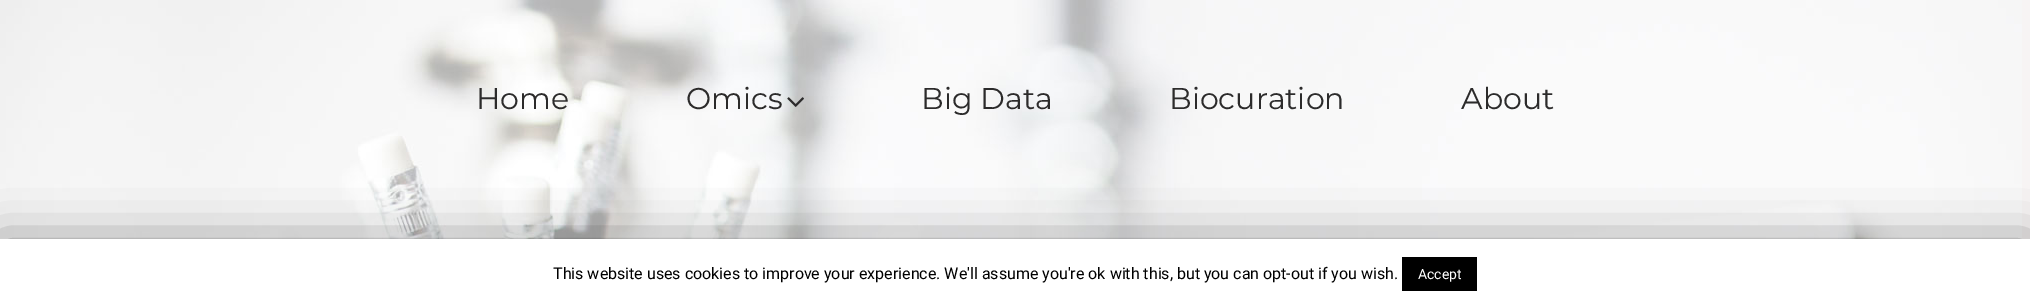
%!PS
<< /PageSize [2030 304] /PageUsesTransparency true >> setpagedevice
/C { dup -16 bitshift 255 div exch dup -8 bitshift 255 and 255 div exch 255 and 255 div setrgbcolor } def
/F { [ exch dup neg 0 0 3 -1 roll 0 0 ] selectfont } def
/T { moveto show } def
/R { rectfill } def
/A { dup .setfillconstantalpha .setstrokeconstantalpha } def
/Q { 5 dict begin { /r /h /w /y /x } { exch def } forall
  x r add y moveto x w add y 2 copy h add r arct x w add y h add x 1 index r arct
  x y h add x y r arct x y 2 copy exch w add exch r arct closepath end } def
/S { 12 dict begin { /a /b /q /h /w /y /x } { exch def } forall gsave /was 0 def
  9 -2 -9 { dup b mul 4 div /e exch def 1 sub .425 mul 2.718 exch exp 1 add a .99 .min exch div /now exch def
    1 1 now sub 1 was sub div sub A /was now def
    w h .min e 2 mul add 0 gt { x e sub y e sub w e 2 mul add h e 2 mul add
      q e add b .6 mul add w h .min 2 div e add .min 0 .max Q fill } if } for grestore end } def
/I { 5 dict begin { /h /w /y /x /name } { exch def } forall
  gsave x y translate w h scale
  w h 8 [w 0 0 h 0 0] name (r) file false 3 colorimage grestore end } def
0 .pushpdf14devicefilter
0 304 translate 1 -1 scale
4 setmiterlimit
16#F7F4F4 C
0 0 2030 304 R
(1.rgb) 0 0 2022 239 I
/Montserrat-Regular 30 F
16#2C2B2B C
(Home) 476 109 T
(Omics) 686 109 T
(2.rgb) 787 97 17 10 I
(Big Data) 921 109 T
(Biocuration) 1169 109 T
(About) 1461 109 T
16#000000 C
0 244 2030 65 0 25 .5 S
16#FFFFFF C
0 239 2030 65 R
/Roboto-Regular 16 F
16#000000 C
(This website uses cookies to improve your experience. We'll assume you're ok with this, but you can opt-out if you wish.) 553 279 T
1402 257 75 34 R
/Roboto-Regular 14 F
16#FFFFFF C
(Accept) 1418 279 T
.poppdf14devicefilter showpage
